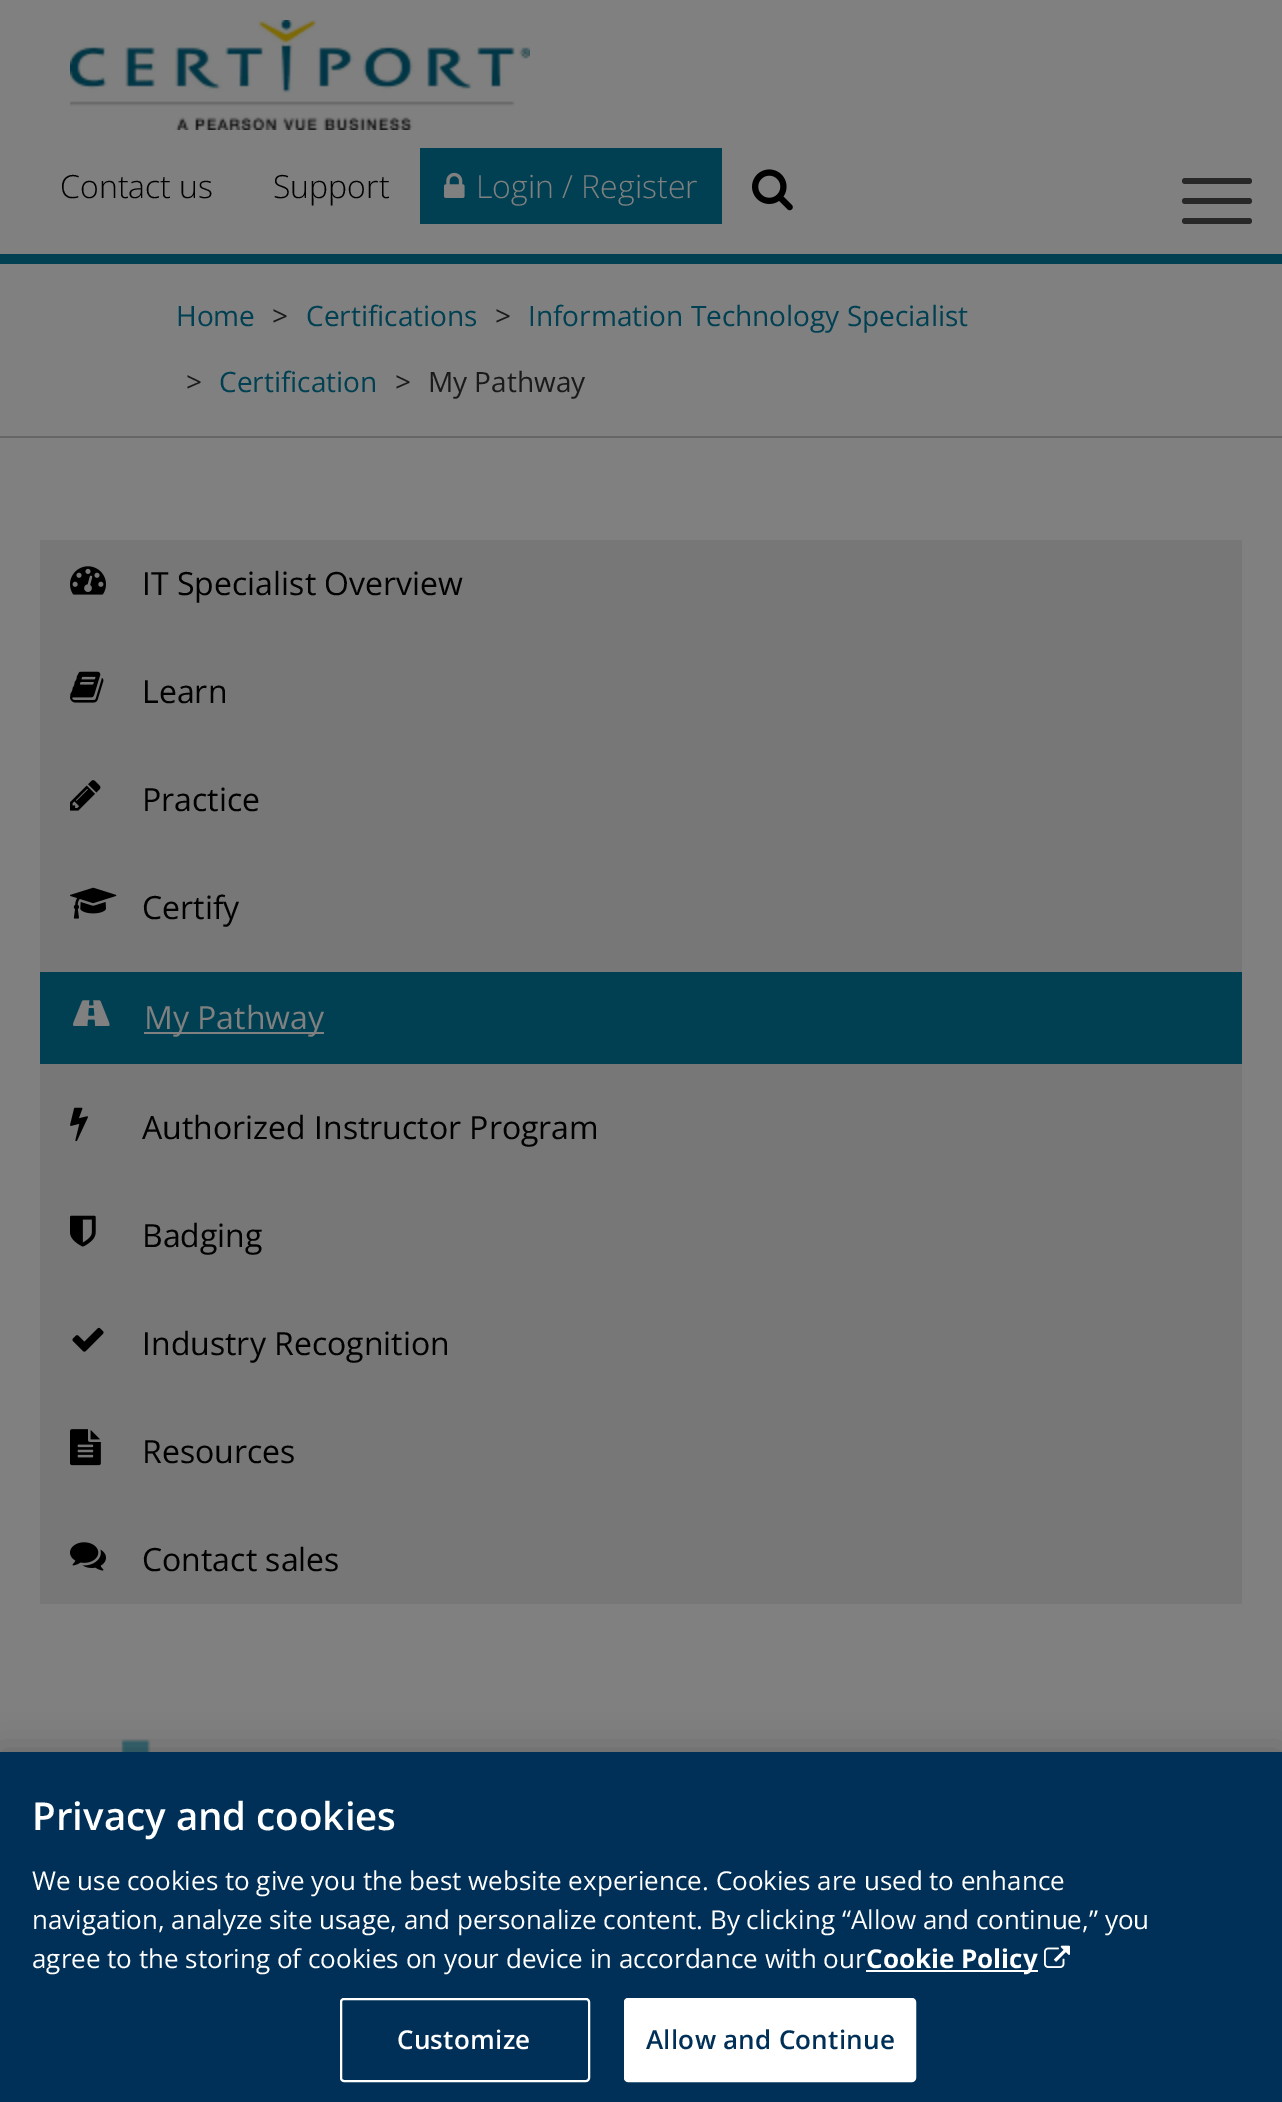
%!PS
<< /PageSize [1282 2102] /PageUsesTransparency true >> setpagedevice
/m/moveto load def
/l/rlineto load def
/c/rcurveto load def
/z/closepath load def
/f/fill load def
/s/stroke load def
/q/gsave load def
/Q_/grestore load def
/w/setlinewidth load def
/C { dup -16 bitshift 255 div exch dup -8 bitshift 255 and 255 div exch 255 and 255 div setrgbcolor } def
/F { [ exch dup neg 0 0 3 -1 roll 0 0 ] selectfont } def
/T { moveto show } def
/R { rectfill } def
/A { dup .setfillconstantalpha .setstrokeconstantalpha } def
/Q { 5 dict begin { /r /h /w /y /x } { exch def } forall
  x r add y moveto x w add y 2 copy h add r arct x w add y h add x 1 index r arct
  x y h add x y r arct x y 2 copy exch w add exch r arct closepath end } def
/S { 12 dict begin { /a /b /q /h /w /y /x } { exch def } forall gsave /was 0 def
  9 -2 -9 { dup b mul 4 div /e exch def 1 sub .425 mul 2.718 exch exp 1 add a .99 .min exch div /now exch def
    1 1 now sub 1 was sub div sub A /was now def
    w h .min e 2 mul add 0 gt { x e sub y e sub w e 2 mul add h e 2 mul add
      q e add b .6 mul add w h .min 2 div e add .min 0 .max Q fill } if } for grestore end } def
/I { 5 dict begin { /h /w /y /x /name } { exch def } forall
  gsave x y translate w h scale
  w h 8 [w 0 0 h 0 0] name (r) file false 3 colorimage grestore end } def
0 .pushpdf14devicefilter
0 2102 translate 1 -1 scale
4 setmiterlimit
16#808080 C
0 0 1282 2102 R
16#004052 C
0 254 1282 10 R
(1.rgb) 70 20 460 110 I
/OpenSans-Light 32 F
16#000000 C
(Contact us) 60 198 T
(Support) 273 198 T
16#004052 C
420 148 302 76 R
(2.rgb) 444 172 21 26 I
16#808080 C
(Login / Register) 476 198 T
(3.rgb) 752 169 41 42 I
16#282828 C
1185 178 m 33 0 l 0 6 l -33 0 l -1.5 0 -3 -1.5 -3 -3 c 0 -1.5 1.5 -3 3 -3 c z f
1218 178 m 31 0 l 1.5 0 3 1.5 3 3 c 0 1.5 -1.5 3 -3 3 c -31 0 l z f
1185 198 m 33 0 l 0 6 l -33 0 l -1.5 0 -3 -1.5 -3 -3 c 0 -1.5 1.5 -3 3 -3 c z f
1218 198 m 31 0 l 1.5 0 3 1.5 3 3 c 0 1.5 -1.5 3 -3 3 c -31 0 l z f
1185 218 m 33 0 l 0 6 l -33 0 l -1.5 0 -3 -1.5 -3 -3 c 0 -1.5 1.5 -3 3 -3 c z f
1218 218 m 31 0 l 1.5 0 3 1.5 3 3 c 0 1.5 -1.5 3 -3 3 c -31 0 l z f
16#666666 C
0 436 1282 2 R
/OpenSans-Regular 28 F
16#004052 C
(Home) 176 326 T
16#1A1A1A C
(>) 272 326 T
16#004052 C
(Certifications) 306 326 T
16#1A1A1A C
(>) 495 326 T
16#004052 C
(Information Technology Specialist) 528 326 T
16#1A1A1A C
(>) 186 392 T
16#004052 C
(Certification) 219 392 T
16#1A1A1A C
(>) 395 392 T
(My Pathway) 428 392 T
16#777777 C
40 540 1202 1064 R
(4.rgb) 70 566 36 29 I
/OpenSans-Regular 32 F
16#000000 C
(IT Specialist Overview) 142 595 T
(5.rgb) 70 671 34 32 I
(Learn) 142 703 T
(6.rgb) 70 780 31 31 I
(Practice) 142 811 T
(7.rgb) 70 887 47 32 I
(Certify) 142 919 T
16#004052 C
40 972 1202 92 R
(8.rgb) 73 1000 37 26 I
16#808080 C
144 1032 180 2 R
(My Pathway) 144 1029 T
(9.rgb) 70 1107 18 35 I
16#000000 C
(Authorized Instructor Program) 142 1139 T
(10.rgb) 70 1215 26 32 I
(Badging) 142 1247 T
(11.rgb) 72 1327 32 25 I
(Industry Recognition) 142 1355 T
(12.rgb) 70 1429 31 37 I
(Resources) 142 1463 T
(13.rgb) 70 1542 36 29 I
(Contact sales) 142 1571 T
(14.rgb) 121 1739 30 13 I
0 1752 1282 350 0 18 .2 S
16#003057 C
0 1752 1282 350 R
/OpenSans-SemiBold 38.5 F
16#FFFFFF C
(Privacy and cookies) 32 1830 T
/OpenSans-Regular 26 F
(We use cookies to give you the best website experience. Cookies are used to enhance) 32 1890 T
(navigation, analyze site usage, and personalize content. By clicking “Allow and continue,” you) 32 1929 T
(agree to the storing of cookies on your device in accordance with our) 32 1968 T
866 1970 172 2 R
/OpenSans-Bold 26 F
(Cookie Policy) 866 1968 T
(15.rgb) 1044 1945 26 23 I
2 w
341 1999 248 82 3 Q s
/OpenSans-SemiBold 26 F
397 2049 m .25 0 (Customize) ashow
625 1999 290 82 3 Q q f Q_
s
16#003057 C
646 2049 m .25 0 (Allow and Continue) ashow
.poppdf14devicefilter showpage
